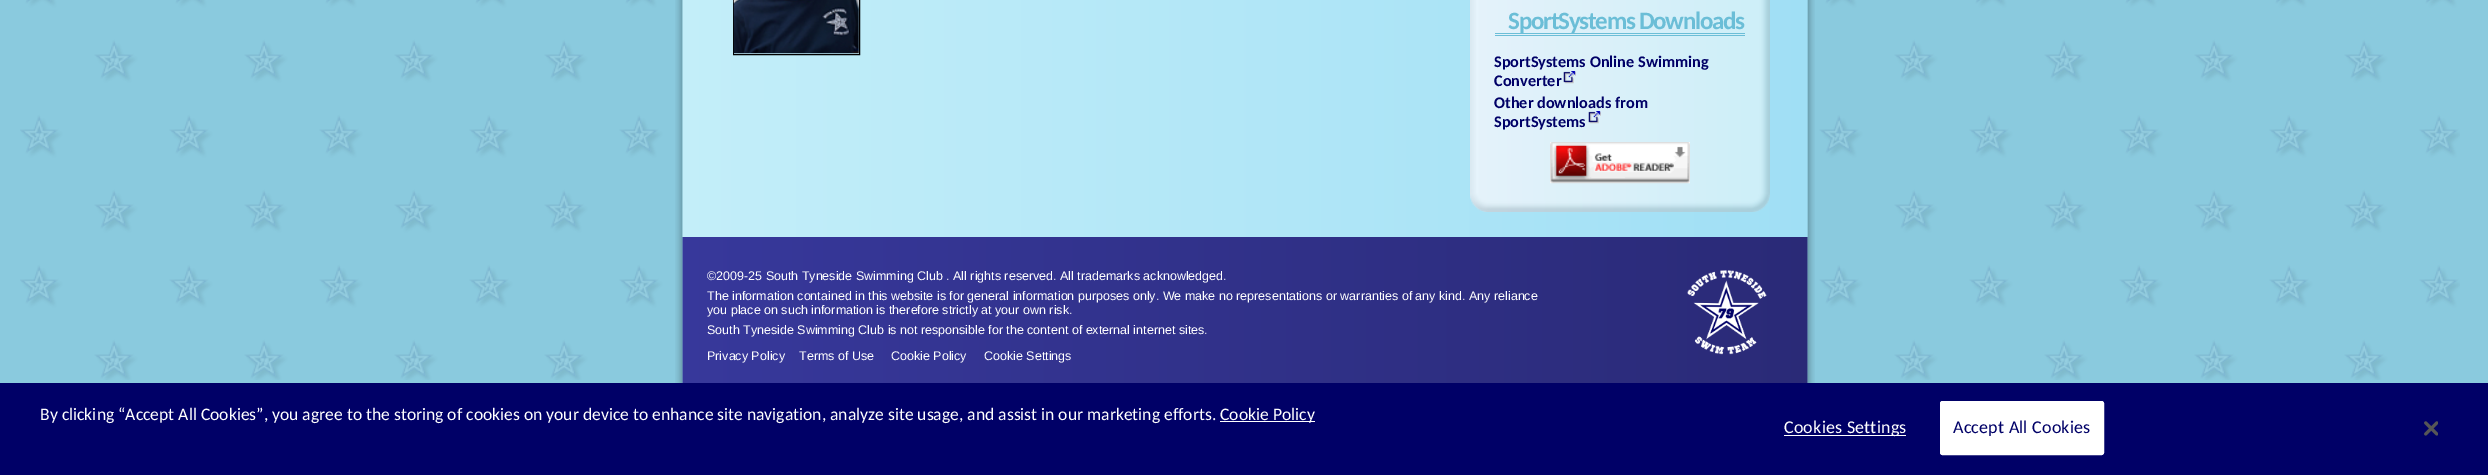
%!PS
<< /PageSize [2488 475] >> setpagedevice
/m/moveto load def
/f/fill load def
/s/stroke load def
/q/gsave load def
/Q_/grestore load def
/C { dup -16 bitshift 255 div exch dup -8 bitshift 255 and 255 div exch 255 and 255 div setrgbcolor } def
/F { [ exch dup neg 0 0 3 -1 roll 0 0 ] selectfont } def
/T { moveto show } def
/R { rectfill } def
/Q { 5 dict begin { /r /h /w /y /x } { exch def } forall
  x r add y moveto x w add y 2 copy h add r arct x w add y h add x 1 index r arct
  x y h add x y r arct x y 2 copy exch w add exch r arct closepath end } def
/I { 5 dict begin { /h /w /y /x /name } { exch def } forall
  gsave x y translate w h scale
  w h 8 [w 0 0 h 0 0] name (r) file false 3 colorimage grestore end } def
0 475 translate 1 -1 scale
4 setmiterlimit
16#8ACADE C
0 0 2488 475 R
(1.rgb) 20 0 2440 380 I
(2.rgb) 675 0 1140 383 I
(3.rgb) 682 0 1126 237 I
16#000000 C
733.5 -.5 126 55 rectstroke
(4.rgb) 733 0 126 54 I
(5.rgb) 1470 0 300 187 I
16#6BBED7 C
1495 33 250 1 R
1495 35 250 1 R
/Carlito-Bold 25 F
1508 29 m -1.25 0 (SportSystems Downloads) ashow
/Carlito-Bold 16.25 F
16#000067 C
(SportSystems Online Swimming) 1494 67 T
(Converter) 1494 86 T
(6.rgb) 1563 71 13 13 I
(Other downloads from) 1494 108 T
(SportSystems) 1494 127 T
(7.rgb) 1588 111 13 13 I
(8.rgb) 1550 142 140 42 I
(9.rgb) 1470 187 300 25 I
(10.rgb) 682 237 1126 146 I
/LiberationSans-Regular 12.5 F
16#FFFFFF C
(©2009-25 South Tyneside Swimming Club . All rights reserved. All trademarks acknowledged.) 707 280 T
(The information contained in this website is for general information purposes only. We make no representations or warranties of any kind. Any reliance) 707 300 T
(you place on such information is therefore strictly at your own risk.) 707 314 T
(South Tyneside Swimming Club is not responsible for the content of external internet sites.) 707 334 T
(Privacy Policy) 707 360 T
(Terms of Use) 799 360 T
(Cookie Policy) 891 360 T
(Cookie Settings) 984 360 T
(11.rgb) 1687 270 80 85 I
16#000067 C
0 383 2488 92 R
/Carlito-Regular 17.6 F
16#FFFFFF C
(By clicking “Accept All Cookies”, you agree to the storing of cookies on your device to enhance site navigation, analyze site usage, and assist in our marketing efforts.) 40 420 T
1220 421 95 1 R
(Cookie Policy) 1220 420 T
1784 435 122 1 R
/Carlito-Regular 18 F
1784 433 m .2 0 (Cookies Settings) ashow
1940.5 401.5 163 53 2 Q q f Q_
s
16#000067 C
1953 433 m .2 0 (Accept All Cookies) ashow
(12.rgb) 2424 421 14 15 I
showpage
